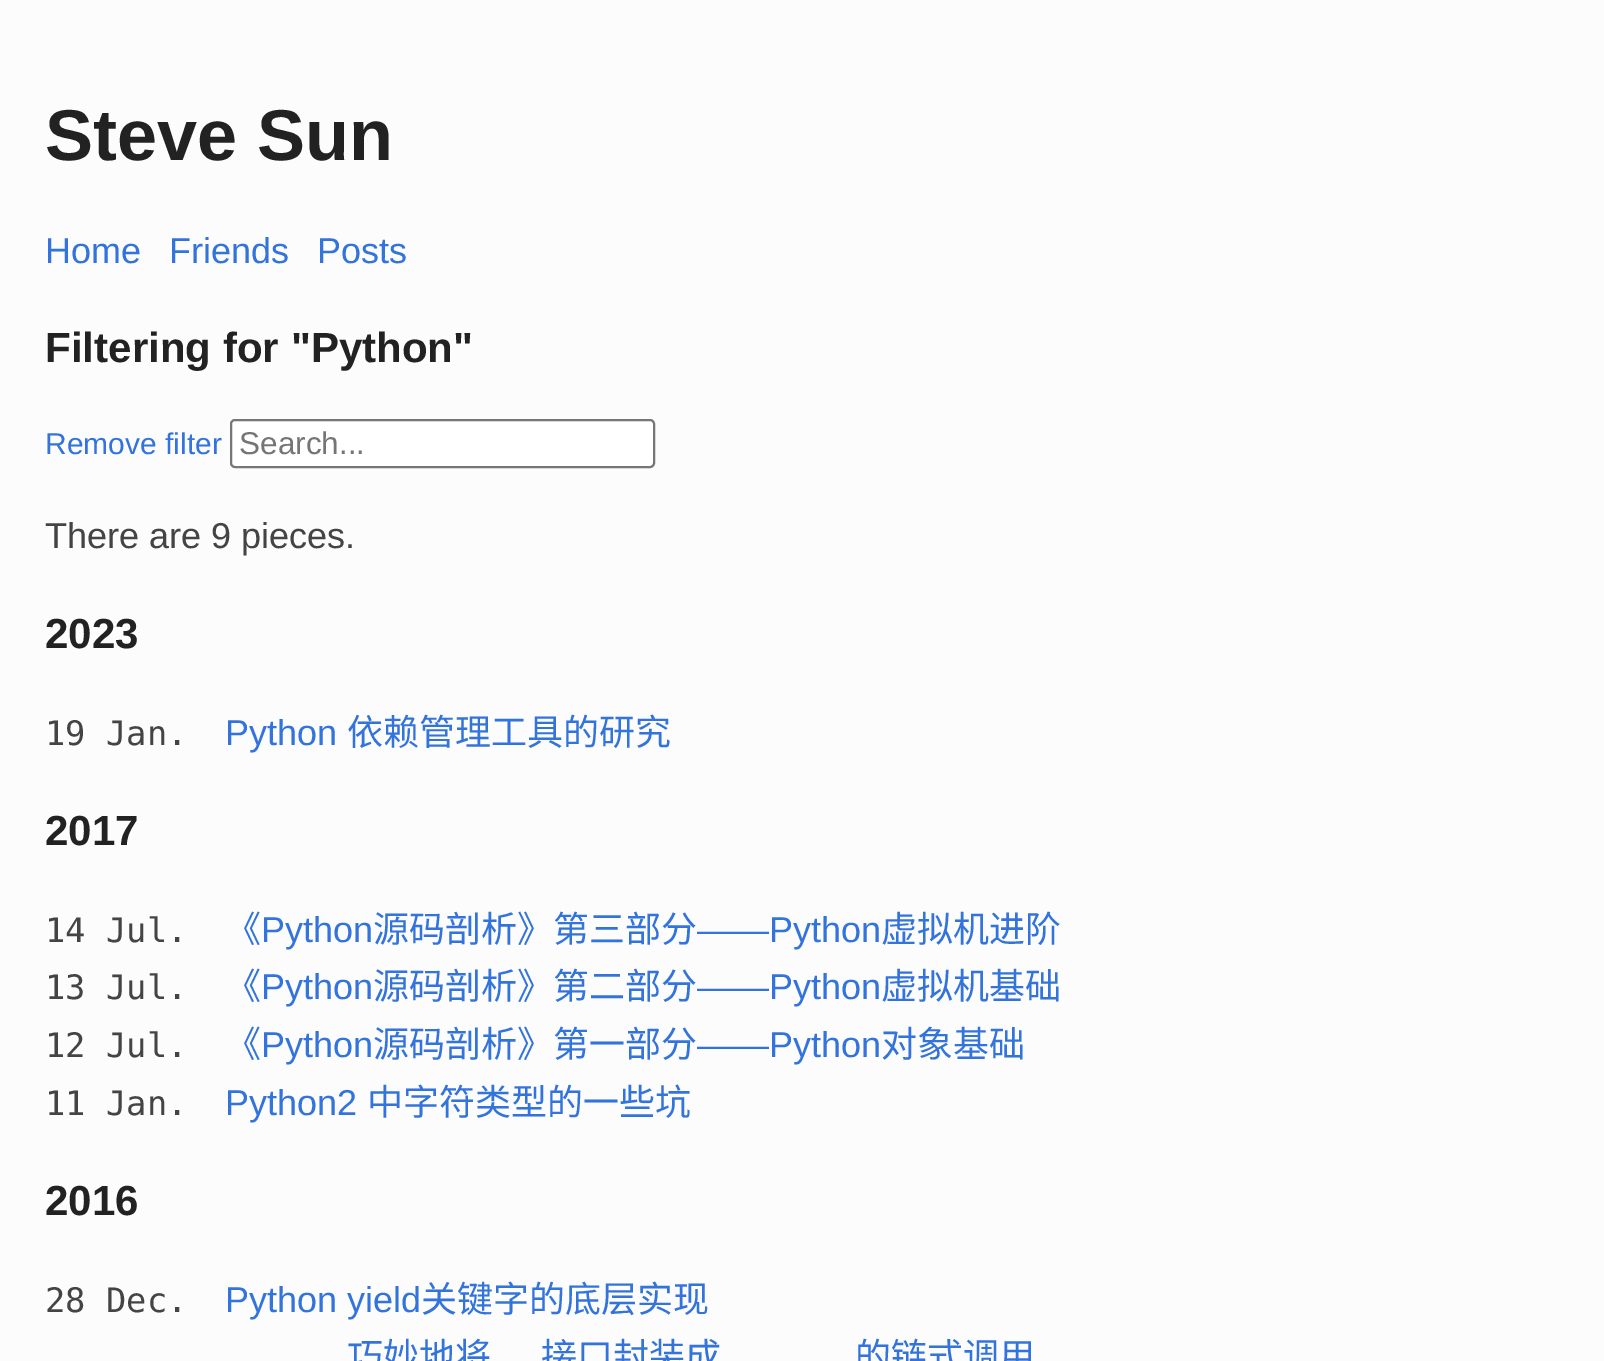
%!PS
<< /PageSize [1604 1361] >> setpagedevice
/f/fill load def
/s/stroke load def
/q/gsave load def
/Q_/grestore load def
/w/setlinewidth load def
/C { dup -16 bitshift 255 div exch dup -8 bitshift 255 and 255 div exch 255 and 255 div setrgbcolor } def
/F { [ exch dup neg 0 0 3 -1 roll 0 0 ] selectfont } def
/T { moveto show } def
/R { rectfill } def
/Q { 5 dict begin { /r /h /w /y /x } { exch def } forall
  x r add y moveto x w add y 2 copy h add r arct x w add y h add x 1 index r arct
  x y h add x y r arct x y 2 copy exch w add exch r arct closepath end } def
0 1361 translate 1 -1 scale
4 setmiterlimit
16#FCFCFC C
0 0 1604 1361 R
/LiberationSans-Bold 72 F
16#222222 C
(Steve Sun) 45 160 T
/LiberationSans-Regular 36 F
16#3273DC C
(Home) 45 263 T
(Friends) 169 263 T
(Posts) 317 263 T
/LiberationSans-Bold 42.1 F
16#222222 C
(Filtering for "Python") 45 362 T
/LiberationSans-Regular 30 F
16#3273DC C
(Remove filter) 45 454 T
16#FFFFFF C
231 420 423 47 4 Q q f Q_
16#767676 C
2 w
s
/LiberationSans-Regular 31.5 F
16#757575 C
(Search...) 239 454 T
/LiberationSans-Regular 36 F
16#444444 C
(There are 9 pieces.) 45 548 T
/LiberationSans-Bold 42.1 F
16#222222 C
(2023) 45 648 T
/DejaVuSansMono-Regular 33.75 F
16#444444 C
(19 Jan.) 45 745 T
/LiberationSans-Regular 36 F
16#3273DC C
(Python) 225 745 T
/NotoSansCJKSC-Regular 36 F
(依赖管理工具的研究) 347 745 T
/LiberationSans-Bold 42.1 F
16#222222 C
(2017) 45 845 T
/DejaVuSansMono-Regular 33.75 F
16#444444 C
(14 Jul.) 45 942 T
/NotoSansCJKSC-Regular 36 F
16#3273DC C
(《) 225 942 T
/LiberationSans-Regular 36 F
(Python) 261 942 T
/NotoSansCJKSC-Regular 36 F
(源码剖析》第三部分) 373 942 T
/LiberationSans-Regular 36 F
(——Python) 697 942 T
/NotoSansCJKSC-Regular 36 F
(虚拟机进阶) 881 942 T
/DejaVuSansMono-Regular 33.75 F
16#444444 C
(13 Jul.) 45 999 T
/NotoSansCJKSC-Regular 36 F
16#3273DC C
(《) 225 999 T
/LiberationSans-Regular 36 F
(Python) 261 999 T
/NotoSansCJKSC-Regular 36 F
(源码剖析》第二部分) 373 999 T
/LiberationSans-Regular 36 F
(——Python) 697 999 T
/NotoSansCJKSC-Regular 36 F
(虚拟机基础) 881 999 T
/DejaVuSansMono-Regular 33.75 F
16#444444 C
(12 Jul.) 45 1057 T
/NotoSansCJKSC-Regular 36 F
16#3273DC C
(《) 225 1057 T
/LiberationSans-Regular 36 F
(Python) 261 1057 T
/NotoSansCJKSC-Regular 36 F
(源码剖析》第一部分) 373 1057 T
/LiberationSans-Regular 36 F
(——Python) 697 1057 T
/NotoSansCJKSC-Regular 36 F
(对象基础) 881 1057 T
/DejaVuSansMono-Regular 33.75 F
16#444444 C
(11 Jan.) 45 1115 T
/LiberationSans-Regular 36 F
16#3273DC C
(Python2) 225 1115 T
/NotoSansCJKSC-Regular 36 F
(中字符类型的一些坑) 367 1115 T
/LiberationSans-Bold 42.1 F
16#222222 C
(2016) 45 1215 T
/DejaVuSansMono-Regular 33.75 F
16#444444 C
(28 Dec.) 45 1312 T
/LiberationSans-Regular 36 F
16#3273DC C
(Python yield) 225 1312 T
/NotoSansCJKSC-Regular 36 F
(关键字的底层实现) 421 1312 T
(巧妙地将) 347 1369 T
(接口封装成) 541 1369 T
(的链式调用) 855 1369 T
showpage
